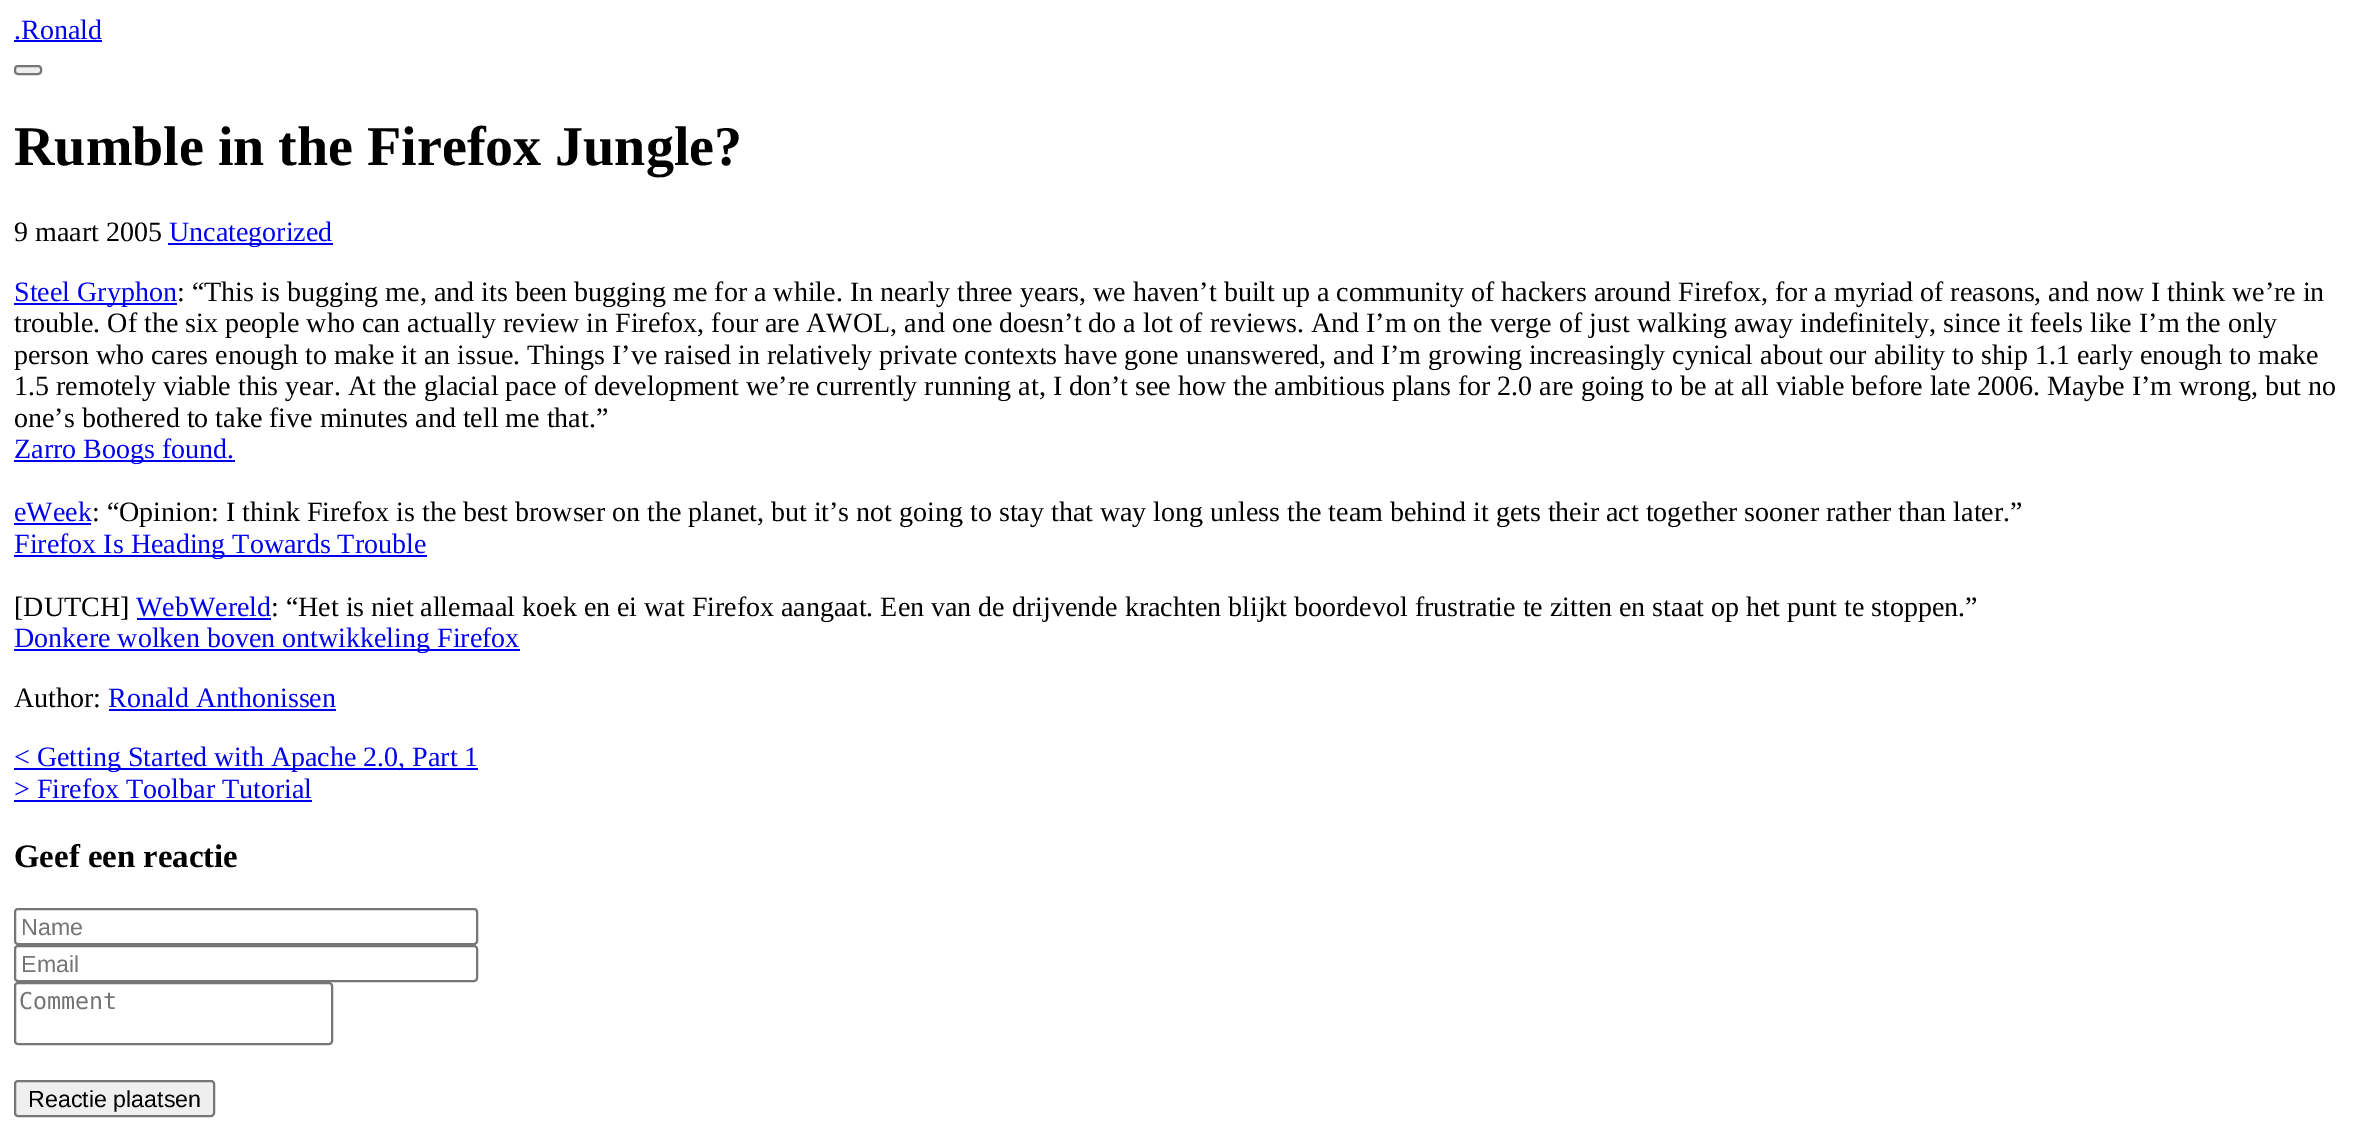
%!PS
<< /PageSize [2372 1129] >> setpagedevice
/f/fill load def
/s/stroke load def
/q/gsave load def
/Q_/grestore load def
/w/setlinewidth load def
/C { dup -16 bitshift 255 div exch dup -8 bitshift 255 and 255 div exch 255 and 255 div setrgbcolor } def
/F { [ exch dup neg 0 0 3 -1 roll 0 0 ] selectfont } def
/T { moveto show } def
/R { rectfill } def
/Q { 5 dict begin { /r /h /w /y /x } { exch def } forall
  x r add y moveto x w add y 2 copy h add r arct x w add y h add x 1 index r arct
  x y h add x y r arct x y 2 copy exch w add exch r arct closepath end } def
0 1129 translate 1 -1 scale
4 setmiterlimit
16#FFFFFF C
0 0 2372 1129 R
/LiberationSerif-Regular 28 F
16#0000EE C
(.Ronald) 14 39 T
14 40 88 2 R
16#EFEFEF C
15 66 26 8 3 Q q f Q_
16#767676 C
2 w
s
/LiberationSerif-Bold 56 F
16#000000 C
(Rumble in the Firefox Jungle?) 14 165 T
/LiberationSerif-Regular 28 F
(9 maart 2005) 14 241 T
16#0000EE C
168 243 165 2 R
(Uncategorized) 169 241 T
14 303 163 2 R
(Steel Gryphon) 14 301 T
16#000000 C
(: “This is bugging me, and its been bugging me for a while. In nearly three years, we haven’t built up a community of hackers around Firefox, for a myriad of reasons, and now I think we’re in) 177 301 T
(trouble. Of the six people who can actually review in Firefox, four are AWOL, and one doesn’t do a lot of reviews. And I’m on the verge of just walking away indefinitely, since it feels like I’m the only) 14 332 T
(person who cares enough to make it an issue. Things I’ve raised in relatively private contexts have gone unanswered, and I’m growing increasingly cynical about our ability to ship 1.1 early enough to make) 14 364 T
(1.5 remotely viable this year. At the glacial pace of development we’re currently running at, I don’t see how the ambitious plans for 2.0 are going to be at all viable before late 2006. Maybe I’m wrong, but no) 14 395 T
(one’s bothered to take five minutes and tell me that.”) 14 427 T
16#0000EE C
14 460 221 2 R
(Zarro Boogs found.) 14 458 T
(eWeek) 14 521 T
16#000000 C
(: “Opinion: I think Firefox is the best browser on the planet, but it’s not going to stay that way long unless the team behind it gets their act together sooner rather than later.”) 92 521 T
16#0000EE C
14 523 77 2 R
14 555 413 2 R
(Firefox Is Heading Towards Trouble) 14 553 T
16#000000 C
([DUTCH]) 14 616 T
16#0000EE C
(WebWereld) 136 616 T
16#000000 C
(: “Het is niet allemaal koek en ei wat Firefox aangaat. Een van de drijvende krachten blijkt boordevol frustratie te zitten en staat op het punt te stoppen.”) 271 616 T
16#0000EE C
137 618 134 2 R
14 649 506 2 R
(Donkere wolken boven ontwikkeling Firefox) 14 647 T
16#000000 C
(Author:) 14 707 T
16#0000EE C
(Ronald Anthonissen) 108 707 T
109 709 227 2 R
14 768 464 2 R
(< Getting Started with Apache 2.0, Part 1) 14 766 T
(> Firefox Toolbar Tutorial) 14 798 T
14 800 298 2 R
/LiberationSerif-Bold 32.75 F
16#000000 C
(Geef een reactie) 14 867 T
16#767676 C
15 909 462 35 3 Q s
/LiberationSans-Regular 23.25 F
16#757575 C
(Name) 21 935 T
16#767676 C
15 946 462 35 3 Q s
16#757575 C
(Email) 21 972 T
16#767676 C
15 983 317 61 3 Q s
/DejaVuSansMono-Regular 23.25 F
16#757575 C
(Comment) 19 1009 T
16#EFEFEF C
15 1081 199 35 3 Q q f Q_
16#767676 C
s
/LiberationSans-Regular 23.25 F
16#000000 C
(Reactie plaatsen) 28 1107 T
showpage
